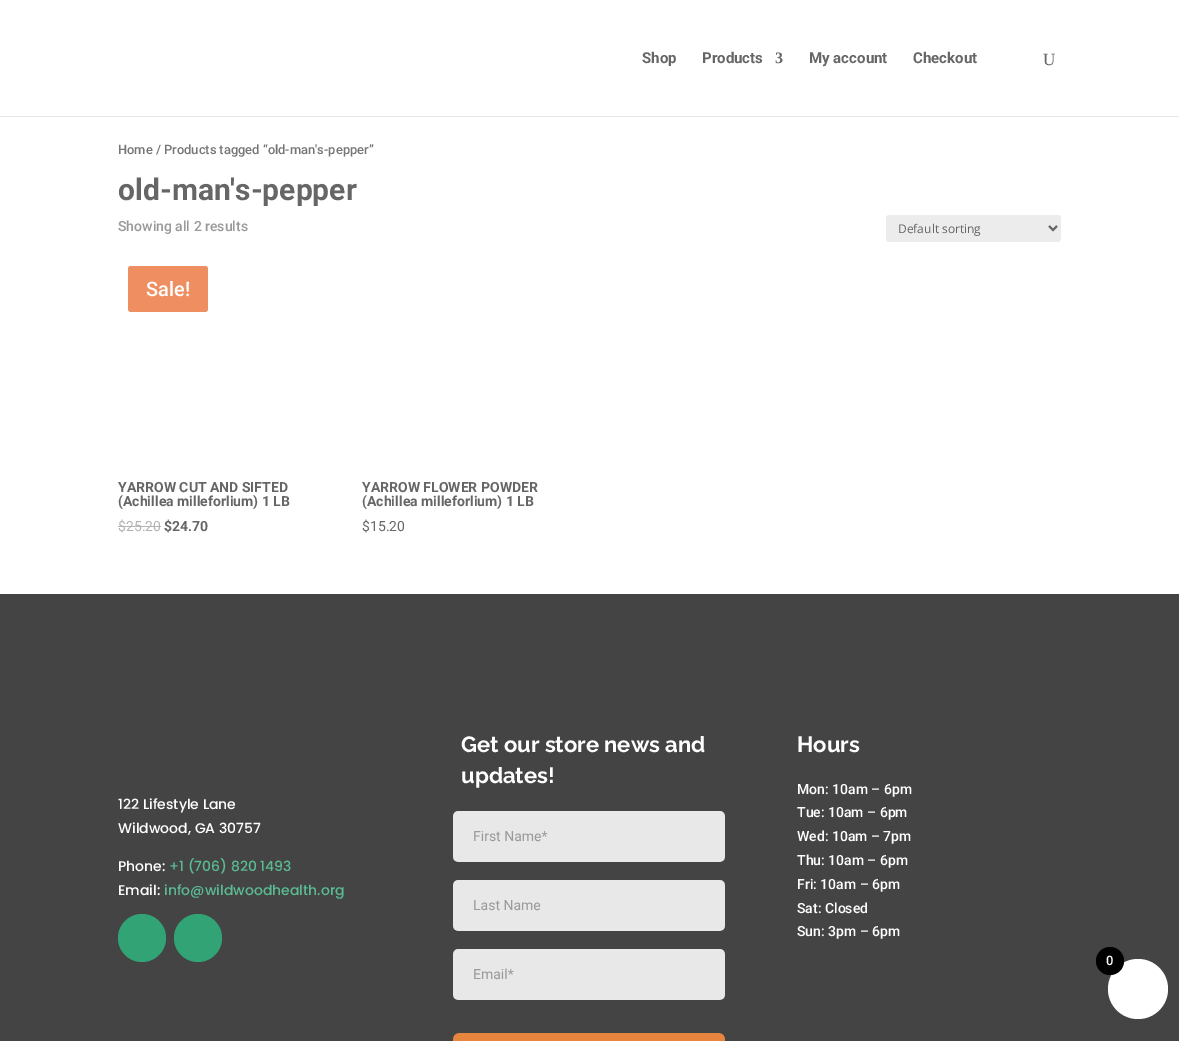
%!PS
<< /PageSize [1179 1041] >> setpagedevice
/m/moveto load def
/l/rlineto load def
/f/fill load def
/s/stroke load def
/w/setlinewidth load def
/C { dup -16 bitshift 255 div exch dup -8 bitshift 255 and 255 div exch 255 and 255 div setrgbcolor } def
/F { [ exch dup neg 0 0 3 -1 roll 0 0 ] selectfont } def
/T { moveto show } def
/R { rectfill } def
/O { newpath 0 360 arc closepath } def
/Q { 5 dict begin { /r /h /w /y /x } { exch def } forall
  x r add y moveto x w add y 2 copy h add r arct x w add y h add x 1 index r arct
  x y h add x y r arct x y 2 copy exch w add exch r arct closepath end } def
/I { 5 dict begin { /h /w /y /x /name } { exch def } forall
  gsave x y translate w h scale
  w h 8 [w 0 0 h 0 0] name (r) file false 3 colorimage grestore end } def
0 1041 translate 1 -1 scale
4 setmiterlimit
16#FFFFFF C
0 0 1179 1041 R
16#E6E6E6 C
0 116 1179 1 R
/Roboto-Bold 15 F
16#666666 C
(Shop) 642 63 T
(Products) 702 63 T
/LiberationSerif-Bold 16 F
(3) 775 63 T
/Roboto-Bold 15 F
(My account) 809 63 T
(Checkout) 913 63 T
/LiberationSerif-Regular 17 F
(U) 1043 65 T
/Roboto-Medium 12.9 F
16#767676 C
(Home / Products tagged “old-man's-pepper”) 118 154 T
/Roboto-Bold 30 F
16#666666 C
(old-man's-pepper) 118 200 T
/Roboto-Medium 14 F
16#999999 C
(Showing all 2 results) 118 231 T
16#ECECEC C
886 215 175 27 3 Q f
16#666666 C
2 w
1049 226 m 4 4 l 4 -4 l s
/OpenSans-Regular 12 F
(Default sorting) 898 233 T
16#EF8F61 C
128 266 80 46 3 Q f
/Roboto-Medium 20 F
16#FFFFFF C
(Sale!) 146 296 T
/Roboto-Bold 14 F
16#666666 C
(YARROW CUT AND SIFTED) 118 492 T
(\(Achillea milleforlium\) 1 LB) 118 506 T
/Roboto-Regular 14 F
16#B3B3B3 C
($25.20) 118 531 T
118 526 43 1 R
/Roboto-Bold 14 F
16#666666 C
($24.70) 164 531 T
(YARROW FLOWER POWDER) 362 492 T
(\(Achillea milleforlium\) 1 LB) 362 506 T
/Roboto-Regular 14 F
($15.20) 362 531 T
16#444444 C
0 594 1179 447 R
/Poppins-Medium 14 F
16#FFFFFF C
(122 Lifestyle Lane) 118 809 T
(Wildwood, GA 30757) 118 833 T
(Phone:) 118 871 T
16#5ABB93 C
(+1 \(706\) 820 1493) 169 871 T
16#FFFFFF C
(Email:) 118 895 T
16#5ABB93 C
(info@wildwoodhealth.org) 164 895 T
16#32A374 C
142 938 24 O f
198 938 24 O f
/Raleway-Bold 22 F
16#FFFFFF C
(Get our store news and) 461 752 T
(updates!) 461 783 T
(1.rgb) 453 811 272 230 I
(Hours) 797 752 T
/Roboto-Medium 14 F
(Mon: 10am – 6pm) 797 794 T
(Tue: 10am – 6pm) 797 817 T
(Wed: 10am – 7pm) 797 841 T
(Thu: 10am – 6pm) 797 865 T
(Fri: 10am – 6pm) 797 889 T
(Sat: Closed) 797 913 T
(Sun: 3pm – 6pm) 797 936 T
1138 989 30 O f
16#000000 C
1110 961 14 O f
/Roboto-Medium 13 F
16#FFFFFF C
(0) 1106 965 T
showpage
